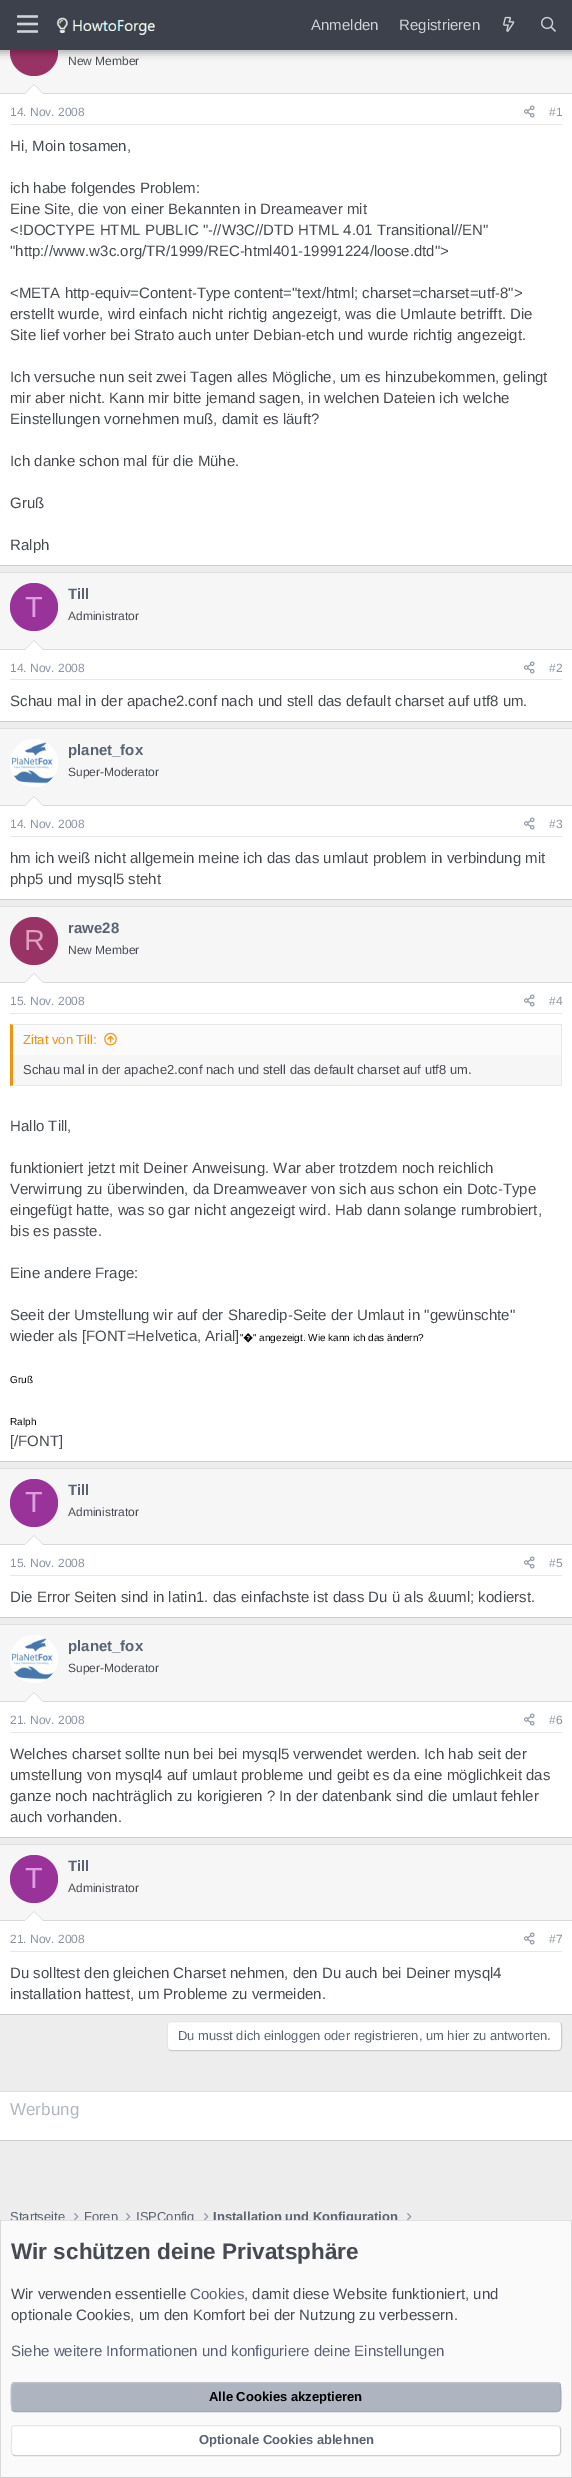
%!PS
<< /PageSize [572 2478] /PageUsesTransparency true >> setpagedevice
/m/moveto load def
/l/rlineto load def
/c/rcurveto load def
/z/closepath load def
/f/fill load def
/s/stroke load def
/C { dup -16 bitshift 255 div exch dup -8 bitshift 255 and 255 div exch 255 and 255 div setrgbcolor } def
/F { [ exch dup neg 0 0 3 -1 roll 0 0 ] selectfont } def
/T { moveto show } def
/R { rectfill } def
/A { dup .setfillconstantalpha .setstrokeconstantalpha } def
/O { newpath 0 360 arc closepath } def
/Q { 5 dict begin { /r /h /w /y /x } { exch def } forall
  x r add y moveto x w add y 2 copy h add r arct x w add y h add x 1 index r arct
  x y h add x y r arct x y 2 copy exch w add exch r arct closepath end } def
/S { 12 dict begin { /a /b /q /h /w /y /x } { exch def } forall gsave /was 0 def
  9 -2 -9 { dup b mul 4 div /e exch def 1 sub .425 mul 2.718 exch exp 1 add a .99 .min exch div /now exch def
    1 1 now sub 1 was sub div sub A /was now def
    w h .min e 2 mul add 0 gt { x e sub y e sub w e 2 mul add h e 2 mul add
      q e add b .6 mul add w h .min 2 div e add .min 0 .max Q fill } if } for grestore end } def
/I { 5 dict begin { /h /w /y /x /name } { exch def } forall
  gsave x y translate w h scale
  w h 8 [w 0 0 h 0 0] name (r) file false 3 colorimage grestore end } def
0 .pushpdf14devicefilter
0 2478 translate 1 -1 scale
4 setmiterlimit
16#EDEDED C
0 0 572 2478 R
16#F6F6F6 C
0 50 572 43 R
16#993366 C
34 52 24 O f
16#000000 C
-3 -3 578 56 0 4 .3 S
16#3C414B C
0 0 572 50 R
(1.rgb) 17 15 21 18 I
(2.rgb) 56 17 99 18 I
/LiberationSans-Regular 15 F
16#CED2D8 C
(Anmelden) 311 30 T
(Registrieren) 399 30 T
(3.rgb) 503 16 12 16 I
(4.rgb) 541 16 15 16 I
16#FFFFFF C
0 94 572 471 R
16#CCCCCC C
0 565 572 1 R
16#D9D9D9 C
0 93 572 1 R
/LiberationSans-Regular 12 F
16#474B51 C
(New Member) 68 65 T
16#D9D9D9 C
44 94 m -20 0 l 10 -10 l z f
16#FFFFFF C
43 94 m -18 0 l 9 -9 l z f
16#E8E8E8 C
10 124 552 1 R
16#8A93A2 C
(14. Nov. 2008) 10 116 T
(5.rgb) 524 105 11 13 I
(#1) 549 116 T
/LiberationSans-Regular 15 F
16#474B51 C
(Hi, Moin tosamen,) 10 151 T
(ich habe folgendes Problem:) 10 193 T
(Eine Site, die von einer Bekannten in Dreameaver mit) 10 214 T
(<!DOCTYPE HTML PUBLIC "-//W3C//DTD HTML 4.01 Transitional//EN") 10 235 T
("http://www.w3c.org/TR/1999/REC-html401-19991224/loose.dtd">) 10 256 T
(<META http-equiv=Content-Type content="text/html; charset=charset=utf-8">) 10 298 T
(erstellt wurde, wird einfach nicht richtig angezeigt, was die Umlaute betrifft. Die) 10 319 T
(Site lief vorher bei Strato auch unter Debian-etch und wurde richtig angezeigt.) 10 340 T
(Ich versuche nun seit zwei Tagen alles Mögliche, um es hinzubekommen, gelingt) 10 382 T
(mir aber nicht. Kann mir bitte jemand sagen, in welchen Dateien ich welche) 10 403 T
(Einstellungen vornehmen muß, damit es läuft?) 10 424 T
(Ich danke schon mal für die Mühe.) 10 466 T
(Gruß) 10 508 T
(Ralph) 10 550 T
16#FFFFFF C
0 650 572 71 R
16#E0E0E0 C
0 572 572 1 R
16#CCCCCC C
0 721 572 1 R
16#F6F6F6 C
0 573 572 76 R
16#D9D9D9 C
0 649 572 1 R
16#993399 C
34 607 24 O f
/LiberationSans-Regular 29 F
16#DF9FDF C
(T) 25 617 T
/LiberationSans-Bold 15 F
16#5A6271 C
(Till) 68 599 T
/LiberationSans-Regular 12 F
16#474B51 C
(Administrator) 68 620 T
16#D9D9D9 C
44 650 m -20 0 l 10 -10 l z f
16#FFFFFF C
43 650 m -18 0 l 9 -9 l z f
16#E8E8E8 C
10 679 552 1 R
16#8A93A2 C
(14. Nov. 2008) 10 672 T
(5.rgb) 524 661 11 13 I
(#2) 549 672 T
/LiberationSans-Regular 15 F
16#474B51 C
(Schau mal in der apache2.conf nach und stell das default charset auf utf8 um.) 10 706 T
16#FFFFFF C
0 806 572 93 R
16#E0E0E0 C
0 728 572 1 R
16#CCCCCC C
0 899 572 1 R
16#F6F6F6 C
0 729 572 76 R
16#D9D9D9 C
0 805 572 1 R
16#FFFFFF C
34 763 24 O f
(6.rgb) 11 742 43 42 I
/LiberationSans-Bold 15 F
16#5A6271 C
(planet_fox) 68 755 T
/LiberationSans-Regular 12 F
16#474B51 C
(Super-Moderator) 68 776 T
16#D9D9D9 C
44 806 m -20 0 l 10 -10 l z f
16#FFFFFF C
43 806 m -18 0 l 9 -9 l z f
16#E8E8E8 C
10 836 552 1 R
16#8A93A2 C
(14. Nov. 2008) 10 828 T
(5.rgb) 524 817 11 13 I
(#3) 549 828 T
/LiberationSans-Regular 15 F
16#474B51 C
(hm ich weiß nicht allgemein meine ich das das umlaut problem in verbindung mit) 10 863 T
(php5 und mysql5 steht) 10 884 T
16#FFFFFF C
0 983 572 478 R
16#E0E0E0 C
0 906 572 1 R
16#CCCCCC C
0 1461 572 1 R
16#F6F6F6 C
0 907 572 75 R
16#D9D9D9 C
0 982 572 1 R
16#993366 C
34 941 24 O f
/LiberationSans-Regular 29 F
16#DF9FBF C
(R) 24 950 T
/LiberationSans-Bold 15 F
16#5A6271 C
(rawe28) 68 933 T
/LiberationSans-Regular 12 F
16#474B51 C
(New Member) 68 954 T
16#D9D9D9 C
44 983 m -20 0 l 10 -10 l z f
16#FFFFFF C
43 983 m -18 0 l 9 -9 l z f
16#E8E8E8 C
10 1013 552 1 R
16#8A93A2 C
(15. Nov. 2008) 10 1005 T
(5.rgb) 524 994 11 13 I
(#4) 549 1005 T
16#F6F6F6 C
13 1055 548 30 R
16#E8E8E8 C
10 1024 m 552 0 l -1 1 l -548 0 l z f
561 1024 1 62 R
562 1086 m -552 0 l 3 -1 l 548 0 l z f
16#F2930D C
10 1086 m 0 -62 l 3 1 l 0 60 l z f
16#FBFBFB C
13 1025 548 30 R
/LiberationSans-Regular 13 F
16#F2930D C
(Zitat von Till:) 23 1044 T
(7.rgb) 104 1032 13 14 I
16#474B51 C
(Schau mal in der apache2.conf nach und stell das default charset auf utf8 um.) 23 1074 T
/LiberationSans-Regular 15 F
(Hallo Till,) 10 1131 T
(funktioniert jetzt mit Deiner Anweisung. War aber trotzdem noch reichlich) 10 1173 T
(Verwirrung zu überwinden, da Dreamweaver von sich aus schon ein Dotc-Type) 10 1194 T
(eingefügt hatte, was so gar nicht angezeigt wird. Hab dann solange rumbrobiert,) 10 1215 T
(bis es passte.) 10 1236 T
(Eine andere Frage:) 10 1278 T
(Seeit der Umstellung wir auf der Sharedip-Seite der Umlaut in "gewünschte") 10 1320 T
(wieder als [FONT=Helvetica, Arial]) 10 1341 T
/LiberationSans-Regular 10 F
16#000000 C
(") 240 1341 T
/Roboto-Regular 10 F
(�) 243 1341 T
/LiberationSans-Regular 10 F
(" angezeigt. Wie kann ich das ändern?) 253 1341 T
(Gruß) 10 1383 T
(Ralph) 10 1425 T
/LiberationSans-Regular 15 F
16#474B51 C
([/FONT]) 10 1446 T
16#FFFFFF C
0 1545 572 72 R
16#E0E0E0 C
0 1468 572 1 R
16#CCCCCC C
0 1617 572 1 R
16#F6F6F6 C
0 1469 572 75 R
16#D9D9D9 C
0 1544 572 1 R
16#993399 C
34 1503 24 O f
/LiberationSans-Regular 29 F
16#DF9FDF C
(T) 25 1512 T
/LiberationSans-Bold 15 F
16#5A6271 C
(Till) 68 1495 T
/LiberationSans-Regular 12 F
16#474B51 C
(Administrator) 68 1516 T
16#D9D9D9 C
44 1545 m -20 0 l 10 -10 l z f
16#FFFFFF C
43 1545 m -18 0 l 9 -9 l z f
16#E8E8E8 C
10 1575 552 1 R
16#8A93A2 C
(15. Nov. 2008) 10 1567 T
(5.rgb) 524 1556 11 13 I
(#5) 549 1567 T
/LiberationSans-Regular 15 F
16#474B51 C
(Die Error Seiten sind in latin1. das einfachste ist dass Du ü als &uuml; kodierst.) 10 1602 T
16#FFFFFF C
0 1702 572 135 R
16#E0E0E0 C
0 1624 572 1 R
16#CCCCCC C
0 1837 572 1 R
16#F6F6F6 C
0 1625 572 76 R
16#D9D9D9 C
0 1701 572 1 R
16#FFFFFF C
34 1659 24 O f
(8.rgb) 11 1638 43 42 I
/LiberationSans-Bold 15 F
16#5A6271 C
(planet_fox) 68 1651 T
/LiberationSans-Regular 12 F
16#474B51 C
(Super-Moderator) 68 1672 T
16#D9D9D9 C
44 1702 m -20 0 l 10 -10 l z f
16#FFFFFF C
43 1702 m -18 0 l 9 -9 l z f
16#E8E8E8 C
10 1732 552 1 R
16#8A93A2 C
(21. Nov. 2008) 10 1724 T
(5.rgb) 524 1713 11 13 I
(#6) 549 1724 T
/LiberationSans-Regular 15 F
16#474B51 C
(Welches charset sollte nun bei bei mysql5 verwendet werden. Ich hab seit der) 10 1759 T
(umstellung von mysql4 auf umlaut probleme und geibt es da eine möglichkeit das) 10 1780 T
(ganze noch nachträglich zu korigieren ? In der datenbank sind die umlaut fehler) 10 1801 T
(auch vorhanden.) 10 1822 T
16#FFFFFF C
0 1921 572 93 R
16#E0E0E0 C
0 1844 572 1 R
16#CCCCCC C
0 2014 572 1 R
16#F6F6F6 C
0 1845 572 75 R
16#D9D9D9 C
0 1920 572 1 R
16#993399 C
34 1879 24 O f
/LiberationSans-Regular 29 F
16#DF9FDF C
(T) 25 1888 T
/LiberationSans-Bold 15 F
16#5A6271 C
(Till) 68 1871 T
/LiberationSans-Regular 12 F
16#474B51 C
(Administrator) 68 1892 T
16#D9D9D9 C
44 1921 m -20 0 l 10 -10 l z f
16#FFFFFF C
43 1921 m -18 0 l 9 -9 l z f
16#E8E8E8 C
10 1951 552 1 R
16#8A93A2 C
(21. Nov. 2008) 10 1943 T
(5.rgb) 524 1932 11 13 I
(#7) 549 1943 T
/LiberationSans-Regular 15 F
16#474B51 C
(Du solltest den gleichen Charset nehmen, den Du auch bei Deiner mysql4) 10 1978 T
(installation hattest, um Probleme zu vermeiden.) 10 1999 T
16#FFFFFF C
167 2021 395 30 4 Q f
16#CCCCCC C
560.5 2022.5 m 2 2 1 10.5 1 13.5 c 0 3 1 11.5 -1 13.5 c -2 1 l -194 0 l -194 0 l -2 -1 l s
16#E6E6E6 C
168.5 2049.5 m -2 -2 -1 -10.5 -1 -13.5 c 0 -3 -1 -11.5 1 -13.5 c 2 -1 l 194 0 l 194 0 l 2 1 l s
/LiberationSans-Regular 13 F
16#5A6271 C
(Du musst dich einloggen oder registrieren, um hier zu antworten.) 178 2040 T
16#FFFFFF C
0 2092 572 48 R
16#E0E0E0 C
0 2091 572 1 R
16#CCCCCC C
0 2140 572 1 R
/LiberationSans-Regular 17 F
16#AFB5C0 C
(Werbung) 10 2115 T
/LiberationSans-Regular 13 F
16#5A6271 C
(Startseite) 10 2221 T
(9.rgb) 74 2213 5 7 I
(Foren) 84 2221 T
(9.rgb) 126 2213 5 7 I
(ISPConfig) 136 2221 T
(9.rgb) 204 2213 5 7 I
/LiberationSans-Bold 13 F
(Installation und Konfiguration) 213 2221 T
(9.rgb) 407 2213 5 7 I
16#FAFAFB C
1 2221 570 256 R
16#E0E0E0 C
0 2220 572 1 R
16#D9D9D9 C
571 2220 1 258 R
16#CCCCCC C
0 2477 572 1 R
16#D9D9D9 C
0 2220 1 258 R
/LiberationSans-Bold 22.5 F
16#474B51 C
(Wir schützen deine Privatsphäre) 11 2259 T
/LiberationSans-Regular 15 F
(Wir verwenden essentielle) 11 2299 T
16#5A6271 C
(Cookies) 190 2299 T
16#474B51 C
(, damit diese Website funktioniert, und) 244 2299 T
(optionale Cookies, um den Komfort bei der Nutzung zu verbessern.) 11 2320 T
16#5A6271 C
(Siehe weitere Informationen und konfiguriere deine Einstellungen) 11 2356 T
16#AFB5C0 C
11 2382 550 30 4 Q f
16#A1A8B5 C
559.5 2383.5 m 2 2 1.5 21.5 1 25 c -1.5 2 l -2 1 l -542 0 l -2.5 -1 l s
16#BDC2CB C
12.5 2410.5 m -2 -2 -1.5 -21.5 -1 -25 c 1.5 -2 l 2 -1 l 542 0 l 2.5 1 l s
/LiberationSans-Bold 13 F
16#000000 C
(Alle Cookies akzeptieren) 209 2401 T
16#FFFFFF C
11 2425 550 31 4 Q f
16#CCCCCC C
559.5 2426.5 m 2 2.5 1 11 1 14 c 0 7.5 l 0 2.5 .5 5.5 -1.5 7 c -2 .5 l -542 0 l -2.5 -1 l s
16#E6E6E6 C
12.5 2454.5 m -2 -2.5 -1 -11 -1 -14 c 0 -7.5 l 0 -2.5 -.5 -5.5 1.5 -7 c 2 -.5 l 542 0 l 2.5 1 l s
16#5A6271 C
(Optionale Cookies ablehnen) 199 2444 T
.poppdf14devicefilter showpage
